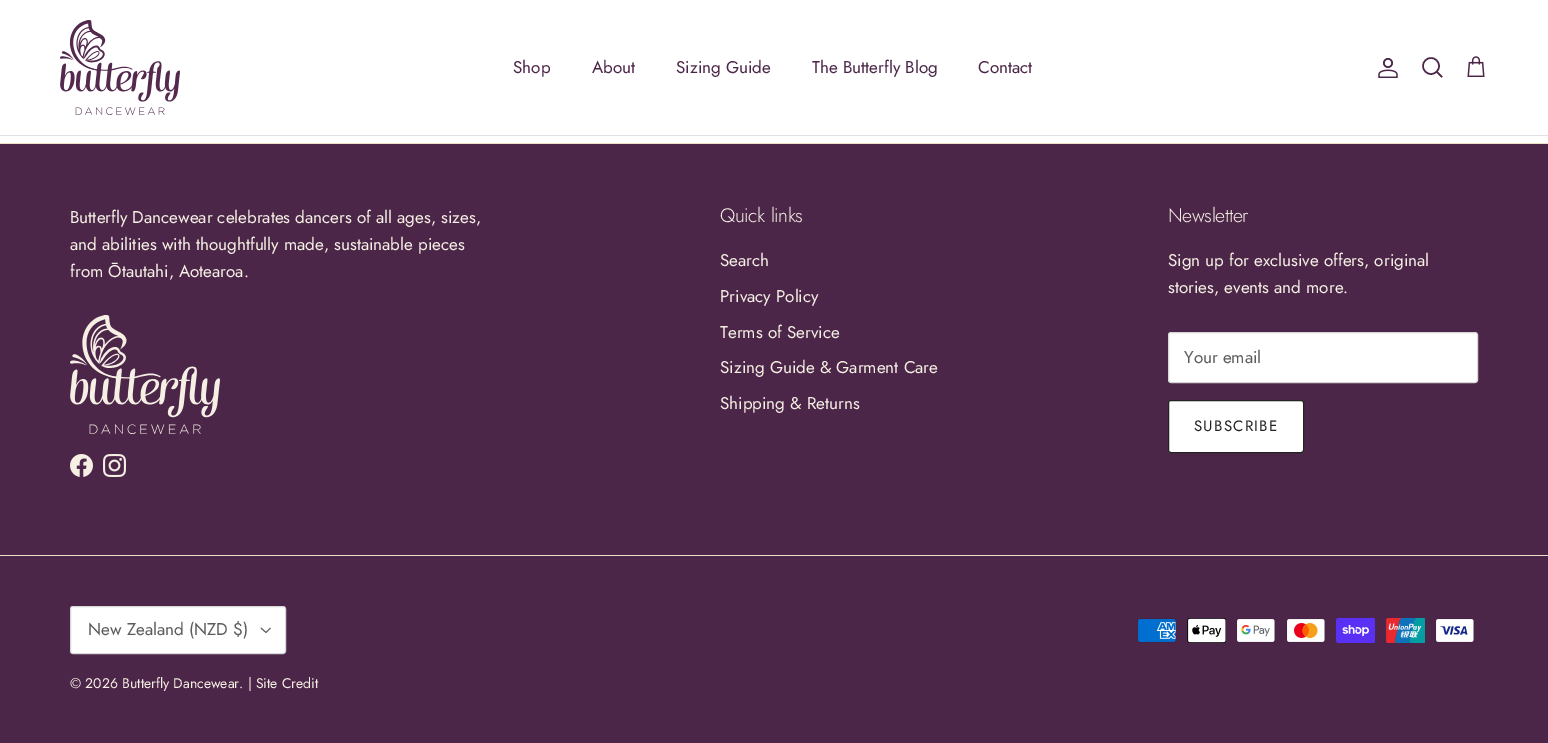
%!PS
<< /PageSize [1548 743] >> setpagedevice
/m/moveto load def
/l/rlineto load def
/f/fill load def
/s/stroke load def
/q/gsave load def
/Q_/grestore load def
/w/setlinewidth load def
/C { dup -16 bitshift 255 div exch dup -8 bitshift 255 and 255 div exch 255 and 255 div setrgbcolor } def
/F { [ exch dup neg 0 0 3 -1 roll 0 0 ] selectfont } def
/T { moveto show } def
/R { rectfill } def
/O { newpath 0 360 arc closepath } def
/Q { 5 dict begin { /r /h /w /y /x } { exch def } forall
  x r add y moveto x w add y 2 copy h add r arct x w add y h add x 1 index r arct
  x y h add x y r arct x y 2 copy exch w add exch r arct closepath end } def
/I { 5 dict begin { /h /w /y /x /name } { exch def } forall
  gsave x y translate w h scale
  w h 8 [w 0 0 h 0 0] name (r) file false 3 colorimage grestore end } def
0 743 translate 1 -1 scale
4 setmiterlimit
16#FFFFFF C
0 0 1548 743 R
16#DFE3E8 C
0 135 1548 1 R
(1.rgb) 60 20 120 95 I
/Jost-Regular 17 F
16#4C2649 C
(Shop) 513 73 T
(About) 592 73 T
(Sizing Guide) 676 73 T
(The Butterfly Blog) 812 73 T
(Contact) 978 73 T
(2.rgb) 1378 58 20 20 I
1.5 w
1431 66 8 O s
2 setlinecap
1437 72 m 4.5 4.5 l s
(3.rgb) 1467 56 18 21 I
0 144 1548 599 R
16#EFDFC7 C
0 143 1548 1 R
16#F6EFE4 C
(Butterfly Dancewear celebrates dancers of all ages, sizes,) 70 223 T
(and abilities with thoughtfully made, sustainable pieces) 70 250 T
(from Ōtautahi, Aotearoa.) 70 277 T
(4.rgb) 70 315 150 119 I
(5.rgb) 70 454 23 23 I
(6.rgb) 103 454 23 23 I
/Jost-Light 19.5 F
720 222 m -.4 0 (Quick links) ashow
/Jost-Regular 17 F
(Search) 720 266 T
(Privacy Policy) 720 302 T
(Terms of Service) 720 338 T
(Sizing Guide & Garment Care) 720 373 T
(Shipping & Returns) 720 409 T
/Jost-Light 19.5 F
1168 222 m -.4 0 (Newsletter) ashow
/Jost-Regular 17 F
(Sign up for exclusive offers, original) 1168 266 T
(stories, events and more.) 1168 293 T
16#FFFFFF C
1168.5 332.5 309 50 2.5 Q q f Q_
16#D6D6D6 C
1 w
0 setlinecap
s
16#5C5C5C C
(Your email) 1184 363 T
16#FFFFFF C
1168.5 400.5 135 52 2.5 Q q f Q_
16#232323 C
s
/Jost-Regular 15 F
1194 431 m 1.25 0 (SUBSCRIBE) ashow
16#EFDFC7 C
0 555 1548 1 R
16#FFFFFF C
70.5 606.5 215 47 2.5 Q q f Q_
16#D6D6D6 C
s
/Jost-Regular 17 F
16#5C5C5C C
(New Zealand \(NZD $\)) 88 635 T
.9 w
270.5 628 m -4.5 4.5 l -5 -4.5 l s
/Jost-Regular 14 F
16#F6EFE4 C
(© 2026 Butterfly Dancewear. | Site Credit) 70 688 T
(7.rgb) 1137 618 39 25 I
(8.rgb) 1187 618 39 25 I
(9.rgb) 1236 618 39 25 I
(10.rgb) 1286 618 39 25 I
(11.rgb) 1336 618 39 25 I
(12.rgb) 1386 618 39 25 I
(13.rgb) 1435 618 39 25 I
showpage
